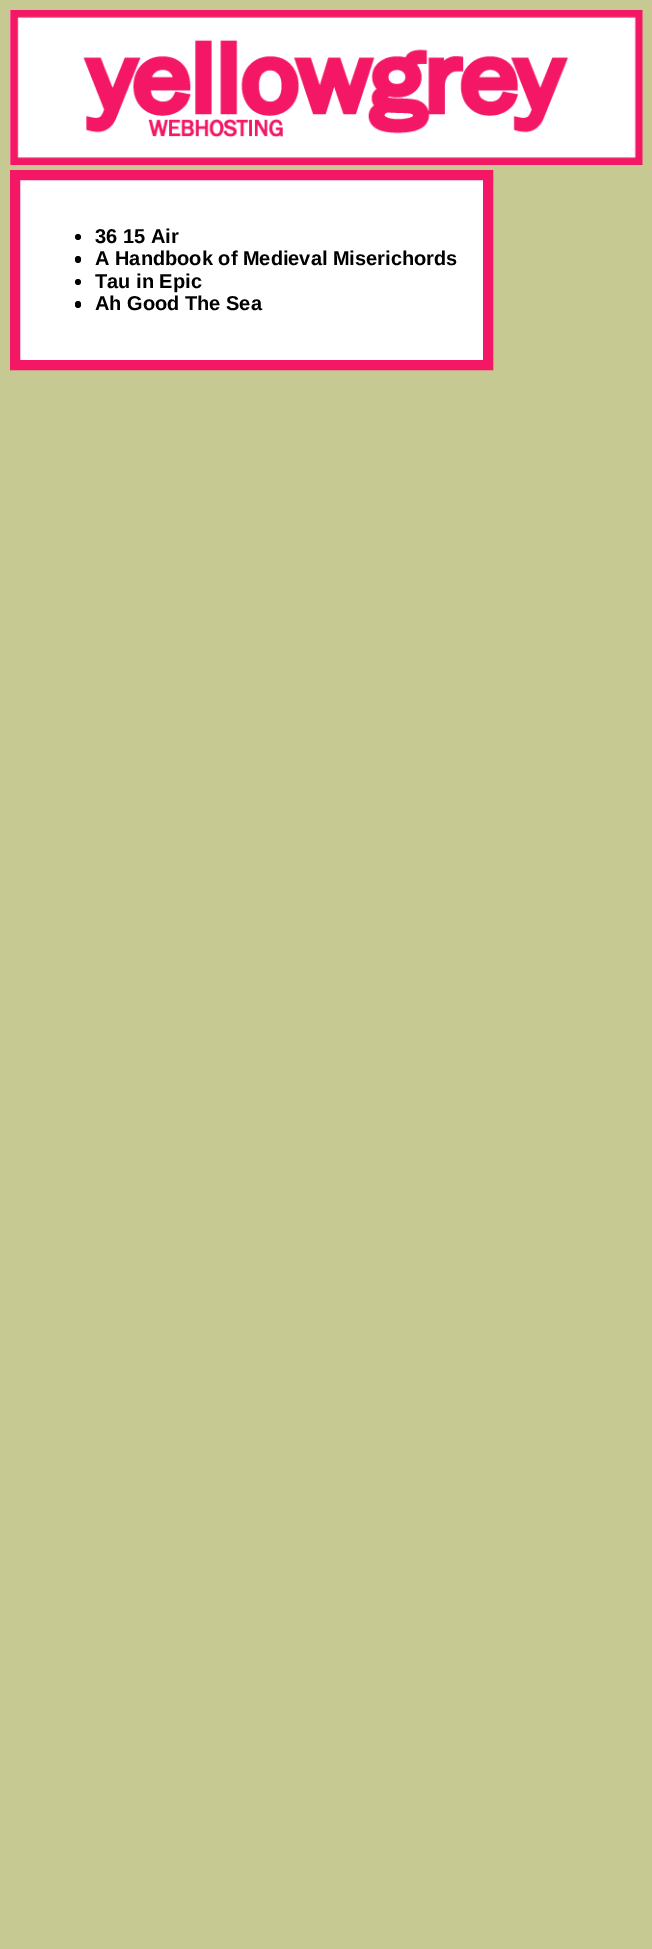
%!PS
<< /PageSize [652 1949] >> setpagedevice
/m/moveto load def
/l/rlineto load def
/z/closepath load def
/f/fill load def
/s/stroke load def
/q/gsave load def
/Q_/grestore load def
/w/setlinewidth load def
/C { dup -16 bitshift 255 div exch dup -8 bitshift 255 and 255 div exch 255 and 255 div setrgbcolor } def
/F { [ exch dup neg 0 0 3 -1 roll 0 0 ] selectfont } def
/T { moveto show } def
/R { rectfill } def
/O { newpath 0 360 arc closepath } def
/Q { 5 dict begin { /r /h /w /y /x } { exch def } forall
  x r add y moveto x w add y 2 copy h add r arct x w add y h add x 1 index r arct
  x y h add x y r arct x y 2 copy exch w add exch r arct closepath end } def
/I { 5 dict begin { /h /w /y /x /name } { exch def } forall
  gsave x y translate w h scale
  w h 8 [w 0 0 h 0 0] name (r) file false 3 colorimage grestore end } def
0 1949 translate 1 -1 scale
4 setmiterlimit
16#C6C991 C
0 0 652 1949 R
(1.rgb) 10 10 633 155 I
16#FFFFFF C
15 175 m 473 0 l 0 190 l -473 0 l z q f Q_
16#F31765 C
10 w
s
16#000000 C
78 237 3 O f
/LiberationSans-Bold 20 F
(36 15 Air) 95 243 T
75 256 6 7 3 Q f
(A Handbook of Medieval Miserichords) 95 265 T
78 282 3 O f
(Tau in Epic) 95 288 T
75 301 6 7 3 Q f
(Ah Good The Sea) 95 310 T
showpage
